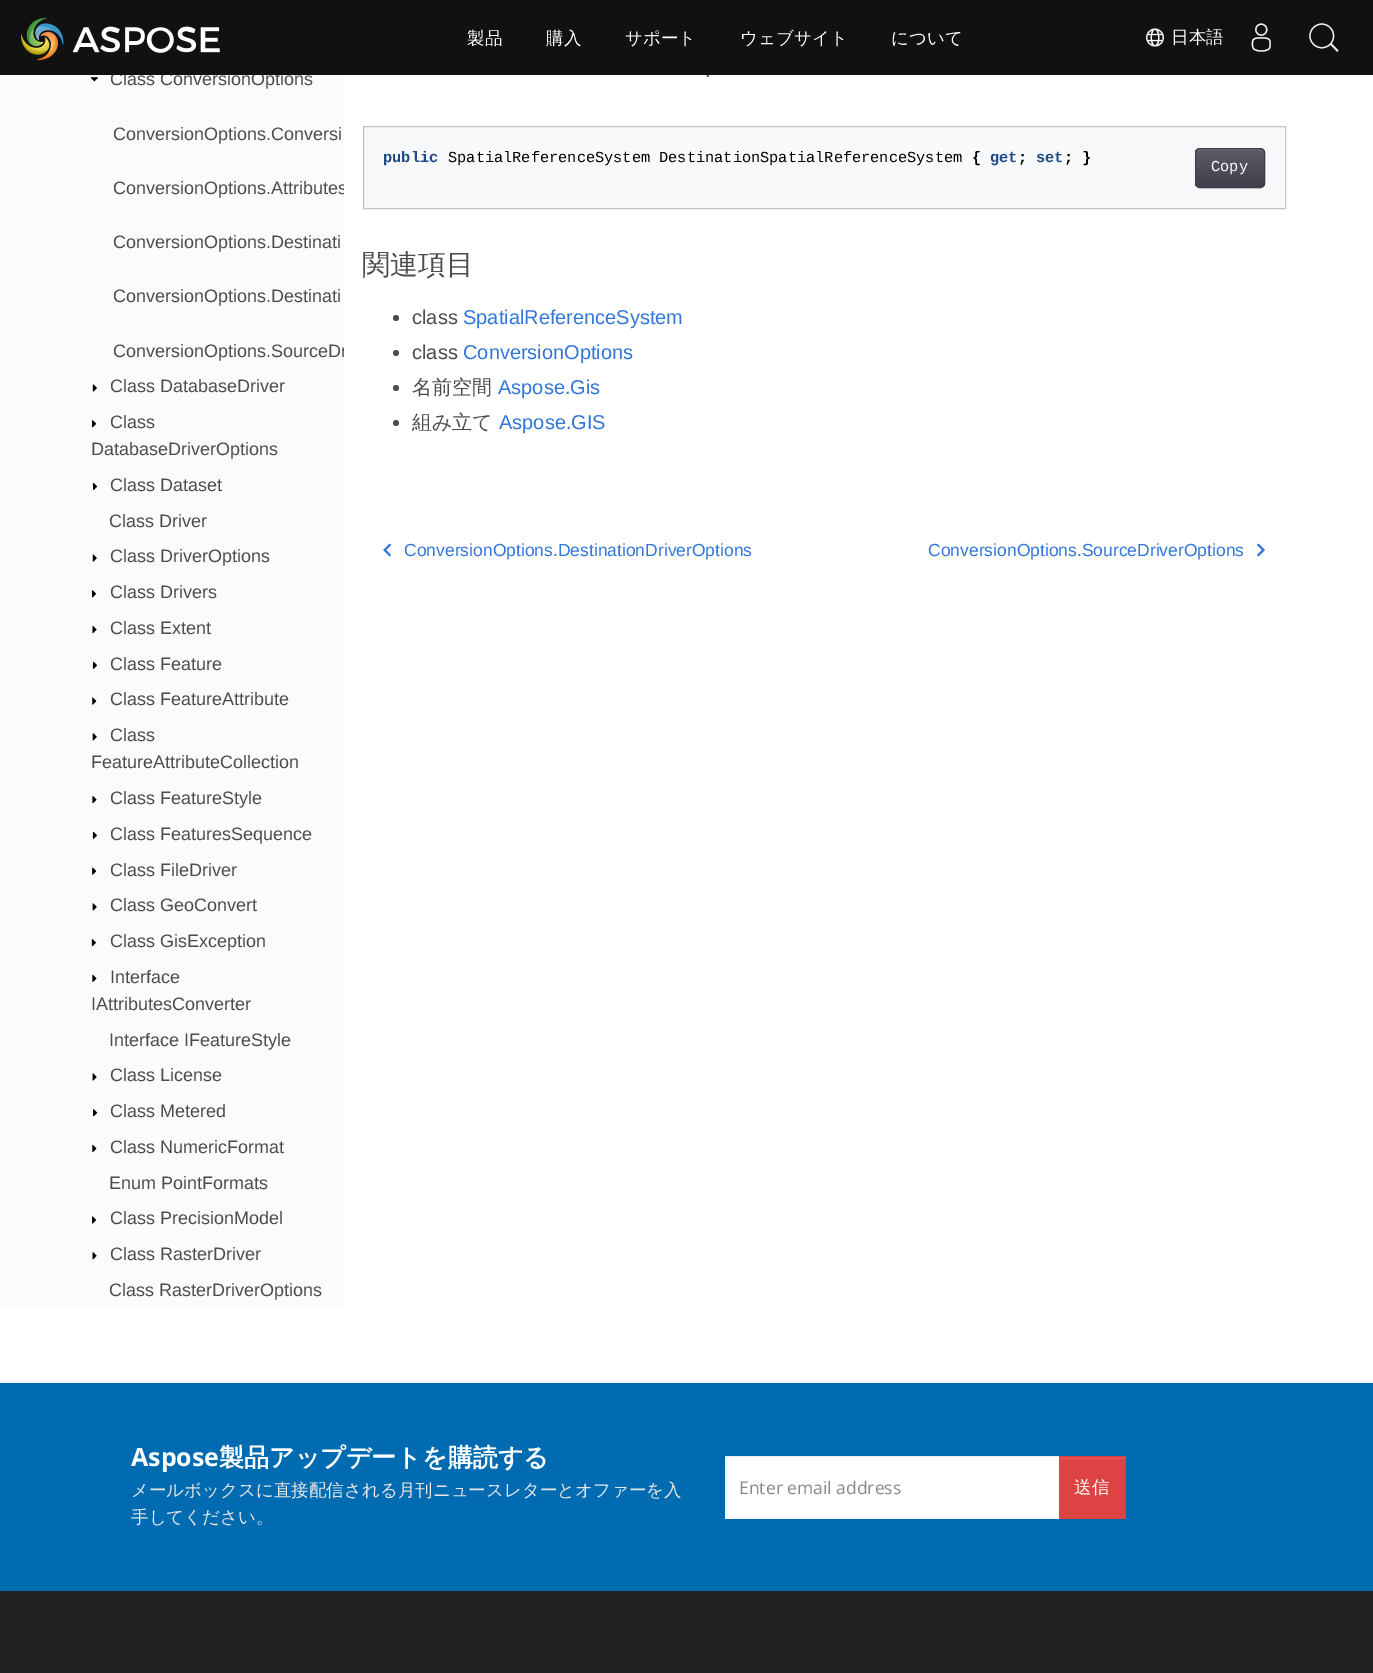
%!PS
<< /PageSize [1373 1673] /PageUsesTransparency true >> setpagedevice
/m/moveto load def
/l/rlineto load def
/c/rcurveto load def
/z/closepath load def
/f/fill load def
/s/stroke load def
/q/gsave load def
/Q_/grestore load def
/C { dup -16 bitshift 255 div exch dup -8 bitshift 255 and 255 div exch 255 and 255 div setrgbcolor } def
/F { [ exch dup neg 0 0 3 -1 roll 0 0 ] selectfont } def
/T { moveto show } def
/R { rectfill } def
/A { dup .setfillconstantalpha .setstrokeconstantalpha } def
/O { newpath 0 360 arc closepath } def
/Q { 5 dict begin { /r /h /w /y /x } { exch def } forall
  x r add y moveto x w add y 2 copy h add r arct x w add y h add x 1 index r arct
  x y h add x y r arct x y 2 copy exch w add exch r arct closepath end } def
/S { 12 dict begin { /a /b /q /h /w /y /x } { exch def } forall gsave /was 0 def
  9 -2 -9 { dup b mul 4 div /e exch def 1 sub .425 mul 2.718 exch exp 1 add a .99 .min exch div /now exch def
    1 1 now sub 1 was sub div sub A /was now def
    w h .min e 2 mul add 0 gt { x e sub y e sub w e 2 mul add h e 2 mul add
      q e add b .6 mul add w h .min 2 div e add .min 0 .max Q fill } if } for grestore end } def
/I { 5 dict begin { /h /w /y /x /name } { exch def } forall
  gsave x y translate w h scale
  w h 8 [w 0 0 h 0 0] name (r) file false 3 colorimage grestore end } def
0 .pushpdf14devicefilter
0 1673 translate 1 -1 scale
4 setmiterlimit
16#FFFFFF C
0 0 1373 1673 R
16#FAFBFC C
0 75 344 1233 R
/LiberationSans-Regular 18 F
16#4C4C4C C
(Class ConversionOptions) 110 85 T
/LiberationSans-Regular 20 F
(.) 705 77 T
16#111111 C
0 0 1373 75 R
(1.rgb) 21 18 199 43 I
/WenQuanYiZenHei-Medium 17.5 F
16#FFFFFF C
(製品) 467 44 T
(購入) 546 44 T
(サポート) 625 44 T
(ウェブサイト) 740 44 T
(について) 891 44 T
(2.rgb) 1146 28 18 19 I
(日本語) 1171 43 T
(3.rgb) 1251 23 20 29 I
(4.rgb) 1309 23 30 29 I
(5.rgb) 90 77 8 5 I
/LiberationSans-Regular 18 F
16#4C4C4C C
(ConversionOptions.Conversi) 113 140 T
q
19 0 325 1308 rectclip
(ConversionOptions.Attributes) 113 194 T
Q_
(ConversionOptions.Destinati) 113 248 T
(ConversionOptions.Destinati) 113 302 T
q
19 0 325 1308 rectclip
(ConversionOptions.SourceDr) 113 357 T
Q_
(6.rgb) 92 384 5 8 I
(Class DatabaseDriver) 110 392 T
(7.rgb) 92 420 5 8 I
(Class) 110 428 T
(DatabaseDriverOptions) 91 455 T
(8.rgb) 93 482 5 9 I
(Class Dataset) 110 491 T
(Class Driver) 109 527 T
(9.rgb) 92 554 5 8 I
(Class DriverOptions) 110 562 T
(10.rgb) 91 590 5 8 I
(Class Drivers) 110 598 T
(11.rgb) 92 626 5 8 I
(Class Extent) 110 634 T
(12.rgb) 92 661 5 8 I
(Class Feature) 110 670 T
(13.rgb) 92 697 5 8 I
(Class FeatureAttribute) 110 705 T
(14.rgb) 92 733 5 8 I
(Class) 110 741 T
(FeatureAttributeCollection) 91 768 T
(15.rgb) 92 796 5 8 I
(Class FeatureStyle) 110 804 T
(16.rgb) 92 831 5 8 I
(Class FeaturesSequence) 110 840 T
(17.rgb) 92 867 5 8 I
(Class FileDriver) 110 876 T
(18.rgb) 92 903 5 8 I
(Class GeoConvert) 110 911 T
(19.rgb) 91 939 5 8 I
(Class GisException) 110 947 T
(20.rgb) 92 974 5 8 I
(Interface) 110 983 T
(IAttributesConverter) 91 1010 T
(Interface IFeatureStyle) 109 1046 T
(21.rgb) 92 1073 5 8 I
(Class License) 110 1081 T
(22.rgb) 93 1109 5 8 I
(Class Metered) 110 1117 T
(23.rgb) 92 1144 5 8 I
(Class NumericFormat) 110 1153 T
(Enum PointFormats) 109 1189 T
(24.rgb) 92 1216 5 8 I
(Class PrecisionModel) 110 1224 T
(25.rgb) 92 1252 5 8 I
(Class RasterDriver) 110 1260 T
(Class RasterDriverOptions) 109 1296 T
16#F8F9FA C
363.5 126.5 m 922 0 l 0 82 l -922 0 l z q f Q_
16#C2C2C2 C
s
/LiberationMono-Bold 15.3 F
16#204A87 C
(public) 383 162 T
/LiberationMono-Regular 15.3 F
16#000000 C
(SpatialReferenceSystem DestinationSpatialReferenceSystem) 448 162 T
/LiberationMono-Bold 15.3 F
({) 972 162 T
16#204A87 C
(get) 990 162 T
16#000000 C
(;) 1018 162 T
16#204A87 C
(set) 1036 162 T
16#000000 C
(; }) 1064 162 T
1195 149 70 40 5 .5 .07 S
16#403F4C C
1195 148 70 40 5 Q f
q
1195 148 70 40 5 Q clip newpath
q 1195 149 m 70 0 l 0 37 l -70 0 l z clip newpath
<< /ShadingType 2 /ColorSpace /DeviceRGB /Coords [1230 149 1230 186] /Extend [true true] /Function << /FunctionType 2 /Domain [0 1] /C0 [.365 .361 .404] /C1 [.251 .247 .298] /N 1 >> >> shfill Q_
Q_
16#75747E C
1200 150 m 60 0 l 2 0 4 2 4 4 c 0 -7 -9 -5 -14 -5 c -40 0 l -5 0 -14 -2 -14 5 c 0 -2 2 -4 4 -4 c z f
16#403F4C C
1195.5 148.5 69 39 4.5 Q s
/LiberationMono-Regular 15.3 F
16#FFFFFF C
(Copy) 1211 171 T
/WenQuanYiZenHei-Medium 28 F
16#4C4C4C C
(関連項目) 362 274 T
396 318 3 O f
/LiberationSans-Regular 20 F
(class) 412 324 T
16#3176D9 C
(SpatialReferenceSystem) 463 324 T
16#4C4C4C C
396 353 3 O f
(class) 412 359 T
16#3176D9 C
(ConversionOptions) 463 359 T
16#4C4C4C C
396 388 3 O f
/WenQuanYiZenHei-Medium 20 F
(名前空間) 412 394 T
/LiberationSans-Regular 20 F
16#3176D9 C
(Aspose.Gis) 498 394 T
16#4C4C4C C
396 423 3 O f
/WenQuanYiZenHei-Medium 20 F
(組み立て) 412 429 T
/LiberationSans-Regular 20 F
16#3176D9 C
(Aspose.GIS) 499 429 T
(26.rgb) 383 543 8 14 I
/LiberationSans-Regular 17.5 F
(ConversionOptions.DestinationDriverOptions) 404 556 T
(ConversionOptions.SourceDriverOptions) 928 556 T
(27.rgb) 1257 543 8 14 I
16#006BB0 C
0 1383 1373 208 R
/OpenSans-Bold 25 F
16#FFFFFF C
(Aspose) 131 1466 T
/WenQuanYiZenHei-Bold 25 F
(製品アップデートを購読する) 219 1466 T
/WenQuanYiZenHei-Medium 17.5 F
16#E8E8E8 C
(メールボックスに直接配信される月刊ニュースレターとオファーを入) 131 1496 T
(手してください。) 131 1523 T
16#FFFFFF C
725 1457 334 62 R
16#ECECEC C
725 1456 334 1 R
/OpenSans-Regular 17.5 F
16#888888 C
(Enter email address) 739 1494 T
16#000000 C
1059 1458 67 62 0 .5 .07 S
16#DC4342 C
1059 1456 67 63 R
16#E15F5E C
1060 1458 65 1 R
/WenQuanYiZenHei-Medium 17.5 F
16#FFFFFF C
(送信) 1074 1493 T
q 0 1591 m 1373 0 l 0 82 l -1373 0 l z clip newpath
<< /ShadingType 2 /ColorSpace /DeviceRGB /Coords [687 1591 687 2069] /Extend [true true] /Function << /FunctionType 3 /Domain [0 1] /Functions [<< /FunctionType 2 /Domain [0 1] /C0 [.133 .133 .133] /C1 [.133 .133 .133] /N 1 >> << /FunctionType 2 /Domain [0 1] /C0 [.133 .133 .133] /C1 [.267 .267 .267] /N 1 >>] /Bounds [.3] /Encode [0 1 0 1] >> >> shfill Q_
.poppdf14devicefilter showpage
